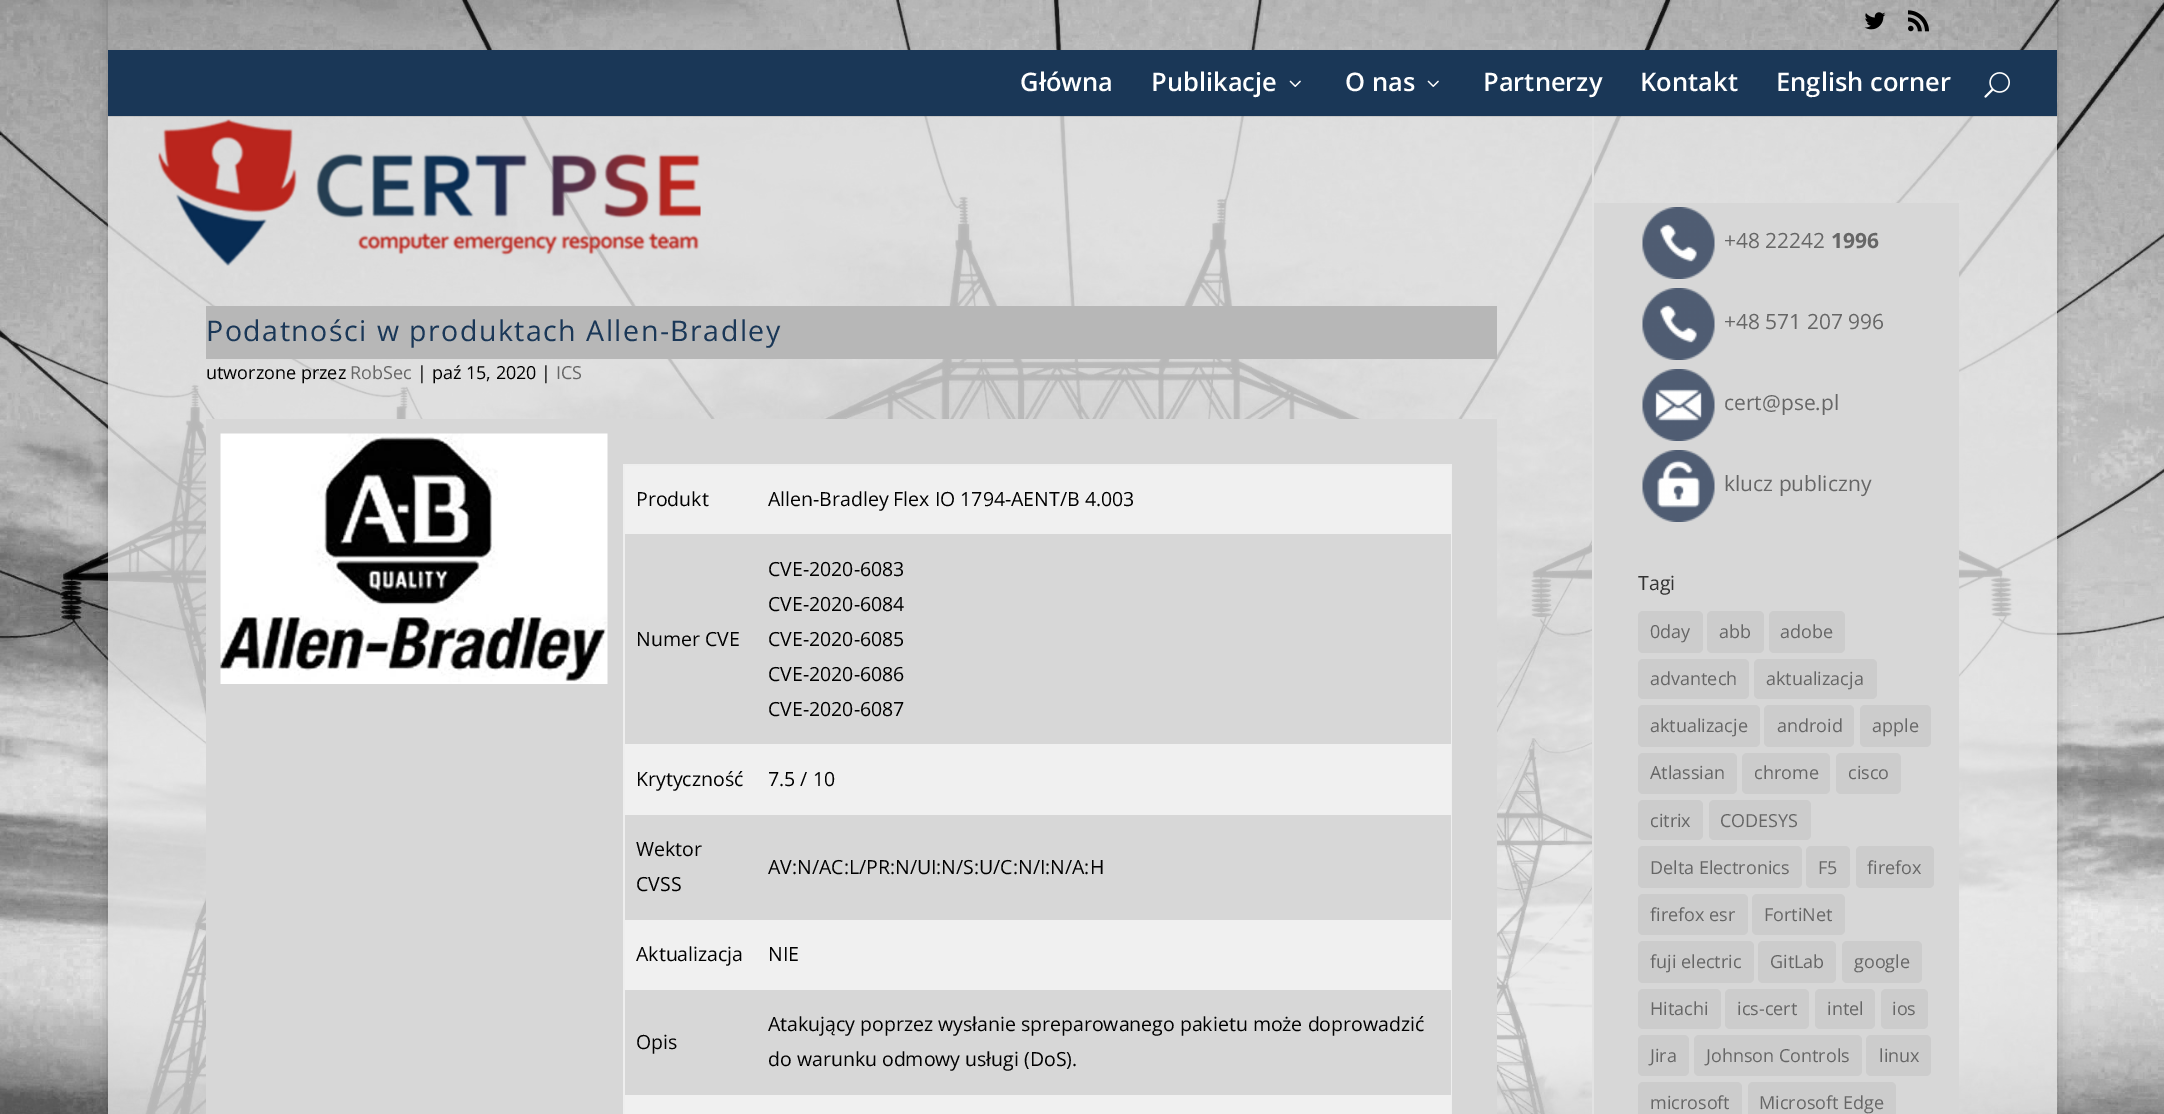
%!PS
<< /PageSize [2164 1114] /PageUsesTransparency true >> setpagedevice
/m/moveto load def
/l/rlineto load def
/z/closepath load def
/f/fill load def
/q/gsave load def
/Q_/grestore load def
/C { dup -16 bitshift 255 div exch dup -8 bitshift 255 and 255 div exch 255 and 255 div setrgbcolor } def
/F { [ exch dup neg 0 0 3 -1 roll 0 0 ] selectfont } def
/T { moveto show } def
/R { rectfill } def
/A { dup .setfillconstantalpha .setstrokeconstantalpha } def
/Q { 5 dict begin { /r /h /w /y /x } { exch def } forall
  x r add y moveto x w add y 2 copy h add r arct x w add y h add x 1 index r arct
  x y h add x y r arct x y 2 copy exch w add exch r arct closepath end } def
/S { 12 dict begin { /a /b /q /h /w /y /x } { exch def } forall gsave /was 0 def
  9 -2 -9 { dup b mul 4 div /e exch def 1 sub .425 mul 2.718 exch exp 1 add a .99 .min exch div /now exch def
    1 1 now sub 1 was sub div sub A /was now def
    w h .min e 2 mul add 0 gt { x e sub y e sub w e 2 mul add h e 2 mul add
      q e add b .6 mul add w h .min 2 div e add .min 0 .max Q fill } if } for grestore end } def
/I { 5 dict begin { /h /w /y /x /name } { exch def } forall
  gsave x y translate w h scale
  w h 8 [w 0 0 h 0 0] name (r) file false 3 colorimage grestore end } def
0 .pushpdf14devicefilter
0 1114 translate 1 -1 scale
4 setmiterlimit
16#FFFFFF C
0 0 2164 1114 R
(1.rgb) 0 0 2164 1114 I
q
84 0 m 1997 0 l 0 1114 l -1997 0 l z 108 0 m 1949 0 l 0 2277 l -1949 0 l z eoclip newpath
16#000000 C
108 0 1949 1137 0 7.5 .2 S
Q_
(2.rgb) 1864 12 22 18 I
(3.rgb) 1908 10 21 22 I
0.8 A
16#E5E5E5 C
108 116 1949 998 R
1 A
16#E2E2E2 C
1592 116 2 998 R
0.1 A
16#000000 C
108 116 m 0 1 l 1949 0 l 0 -66 l -1 0 l 0 65 l z f
1 A
16#1A3757 C
108 50 1949 66 R
/OpenSans-SemiBold 25.5 F
16#FFFFFF C
(Główna) 1020 91 T
(Publikacje) 1151 91 T
(4.rgb) 1289 80 12 7 I
(O nas) 1345 91 T
(4.rgb) 1427 80 12 7 I
(Partnerzy) 1483 91 T
(Kontakt) 1640 91 T
(English corner) 1776 91 T
(5.rgb) 1984 72 26 26 I
(6.rgb) 158 119 543 147 I
16#B7B7B7 C
206 306 1291 53 R
/OpenSans-Regular 28.5 F
16#1A3757 C
206 341 m 1.5 0 (Podatności w produktach Allen-Bradley) ashow
/OpenSans-Regular 18 F
16#000000 C
(utworzone przez) 206 379 T
16#666666 C
(RobSec) 350 379 T
16#000000 C
(| paź 15, 2020 |) 417 379 T
16#666666 C
(ICS) 556 379 T
16#D7D7D7 C
206 419 1291 695 R
(7.rgb) 220 433 388 251 I
16#EEEEEE C
623 464 829 2 R
1451 464 1 650 R
623 464 2 650 R
16#F0F0F0 C
625 466 826 68 R
/OpenSans-Regular 19.5 F
16#000000 C
(Produkt) 636 506 T
(Allen-Bradley Flex IO 1794-AENT/B 4.003) 768 506 T
(Numer CVE) 636 646 T
(CVE-2020-6083) 768 576 T
(CVE-2020-6084) 768 611 T
(CVE-2020-6085) 768 646 T
(CVE-2020-6086) 768 681 T
(CVE-2020-6087) 768 716 T
16#F0F0F0 C
625 744 826 71 R
16#000000 C
(Krytyczność) 636 786 T
(7.5 / 10) 768 786 T
(Wektor) 636 856 T
(CVSS) 636 891 T
(AV:N/AC:L/PR:N/UI:N/S:U/C:N/I:N/A:H) 768 874 T
16#F0F0F0 C
625 920 826 70 R
16#000000 C
(Aktualizacja) 636 961 T
(NIE) 768 961 T
(Opis) 636 1049 T
(Atakujący poprzez wysłanie spreparowanego pakietu może doprowadzić) 768 1031 T
(do warunku odmowy usługi \(DoS\).) 768 1066 T
16#F0F0F0 C
625 1095 826 19 R
16#D7D7D7 C
1594 203 365 911 R
(8.rgb) 1642 207 73 72 I
/OpenSans-Regular 21 F
16#666666 C
(+48 22242) 1724 248 T
/OpenSans-Bold 21 F
(1996) 1831 248 T
(8.rgb) 1642 288 73 72 I
/OpenSans-Regular 21 F
(+48 571 207 996) 1724 329 T
(9.rgb) 1642 369 73 72 I
(cert@pse.pl) 1724 410 T
(10.rgb) 1642 450 73 72 I
(klucz publiczny) 1724 491 T
/OpenSans-Regular 19.5 F
16#333333 C
(Tagi) 1638 590 T
16#CCCCCC C
1638 611 65 42 5 Q f
/OpenSans-Regular 18 F
16#666666 C
(0day) 1650 638 T
16#CCCCCC C
1707 611 57 42 5 Q f
16#666666 C
(abb) 1719 638 T
16#CCCCCC C
1769 611 76 42 5 Q f
16#666666 C
(adobe) 1780 638 T
16#CCCCCC C
1638 659 111 40 5 Q f
16#666666 C
(advantech) 1650 685 T
16#CCCCCC C
1754 659 123 40 5 Q f
16#666666 C
(aktualizacja) 1766 685 T
16#CCCCCC C
1638 705 122 42 5 Q f
16#666666 C
(aktualizacje) 1650 732 T
16#CCCCCC C
1764 705 90 42 5 Q f
16#666666 C
(android) 1777 732 T
16#CCCCCC C
1860 705 71 42 5 Q f
16#666666 C
(apple) 1872 732 T
16#CCCCCC C
1638 753 99 41 5 Q f
16#666666 C
(Atlassian) 1650 779 T
16#CCCCCC C
1742 753 88 41 5 Q f
16#666666 C
(chrome) 1754 779 T
16#CCCCCC C
1836 753 65 41 5 Q f
16#666666 C
(cisco) 1848 779 T
16#CCCCCC C
1638 800 65 40 5 Q f
16#666666 C
(citrix) 1650 827 T
16#CCCCCC C
1709 800 102 40 5 Q f
16#666666 C
(CODESYS) 1720 827 T
16#CCCCCC C
1638 846 164 42 5 Q f
16#666666 C
(Delta Electronics) 1650 874 T
16#CCCCCC C
1806 846 44 42 5 Q f
16#666666 C
(F5) 1818 874 T
16#CCCCCC C
1856 846 78 42 5 Q f
16#666666 C
(firefox) 1867 874 T
16#CCCCCC C
1638 894 110 41 5 Q f
16#666666 C
(firefox esr) 1650 921 T
16#CCCCCC C
1752 894 93 41 5 Q f
16#666666 C
(FortiNet) 1764 921 T
16#CCCCCC C
1638 941 116 42 5 Q f
16#666666 C
(fuji electric) 1650 968 T
16#CCCCCC C
1758 941 78 42 5 Q f
16#666666 C
(GitLab) 1770 968 T
16#CCCCCC C
1842 941 80 42 5 Q f
16#666666 C
(google) 1854 968 T
16#CCCCCC C
1638 989 83 40 5 Q f
16#666666 C
(Hitachi) 1650 1015 T
16#CCCCCC C
1725 989 84 40 5 Q f
16#666666 C
(ics-cert) 1737 1015 T
16#CCCCCC C
1815 989 60 40 5 Q f
16#666666 C
(intel) 1827 1015 T
16#CCCCCC C
1881 989 47 40 5 Q f
16#666666 C
(ios) 1892 1015 T
16#CCCCCC C
1638 1035 51 41 5 Q f
16#666666 C
(Jira) 1650 1062 T
16#CCCCCC C
1694 1035 168 41 5 Q f
16#666666 C
(Johnson Controls) 1706 1062 T
16#CCCCCC C
1866 1035 65 41 5 Q f
16#666666 C
(linux) 1879 1062 T
16#CCCCCC C
1638 1082 104 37 5 Q f
16#666666 C
(microsoft) 1650 1109 T
16#CCCCCC C
1748 1082 148 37 5 Q f
16#666666 C
(Microsoft Edge) 1759 1109 T
.poppdf14devicefilter showpage
